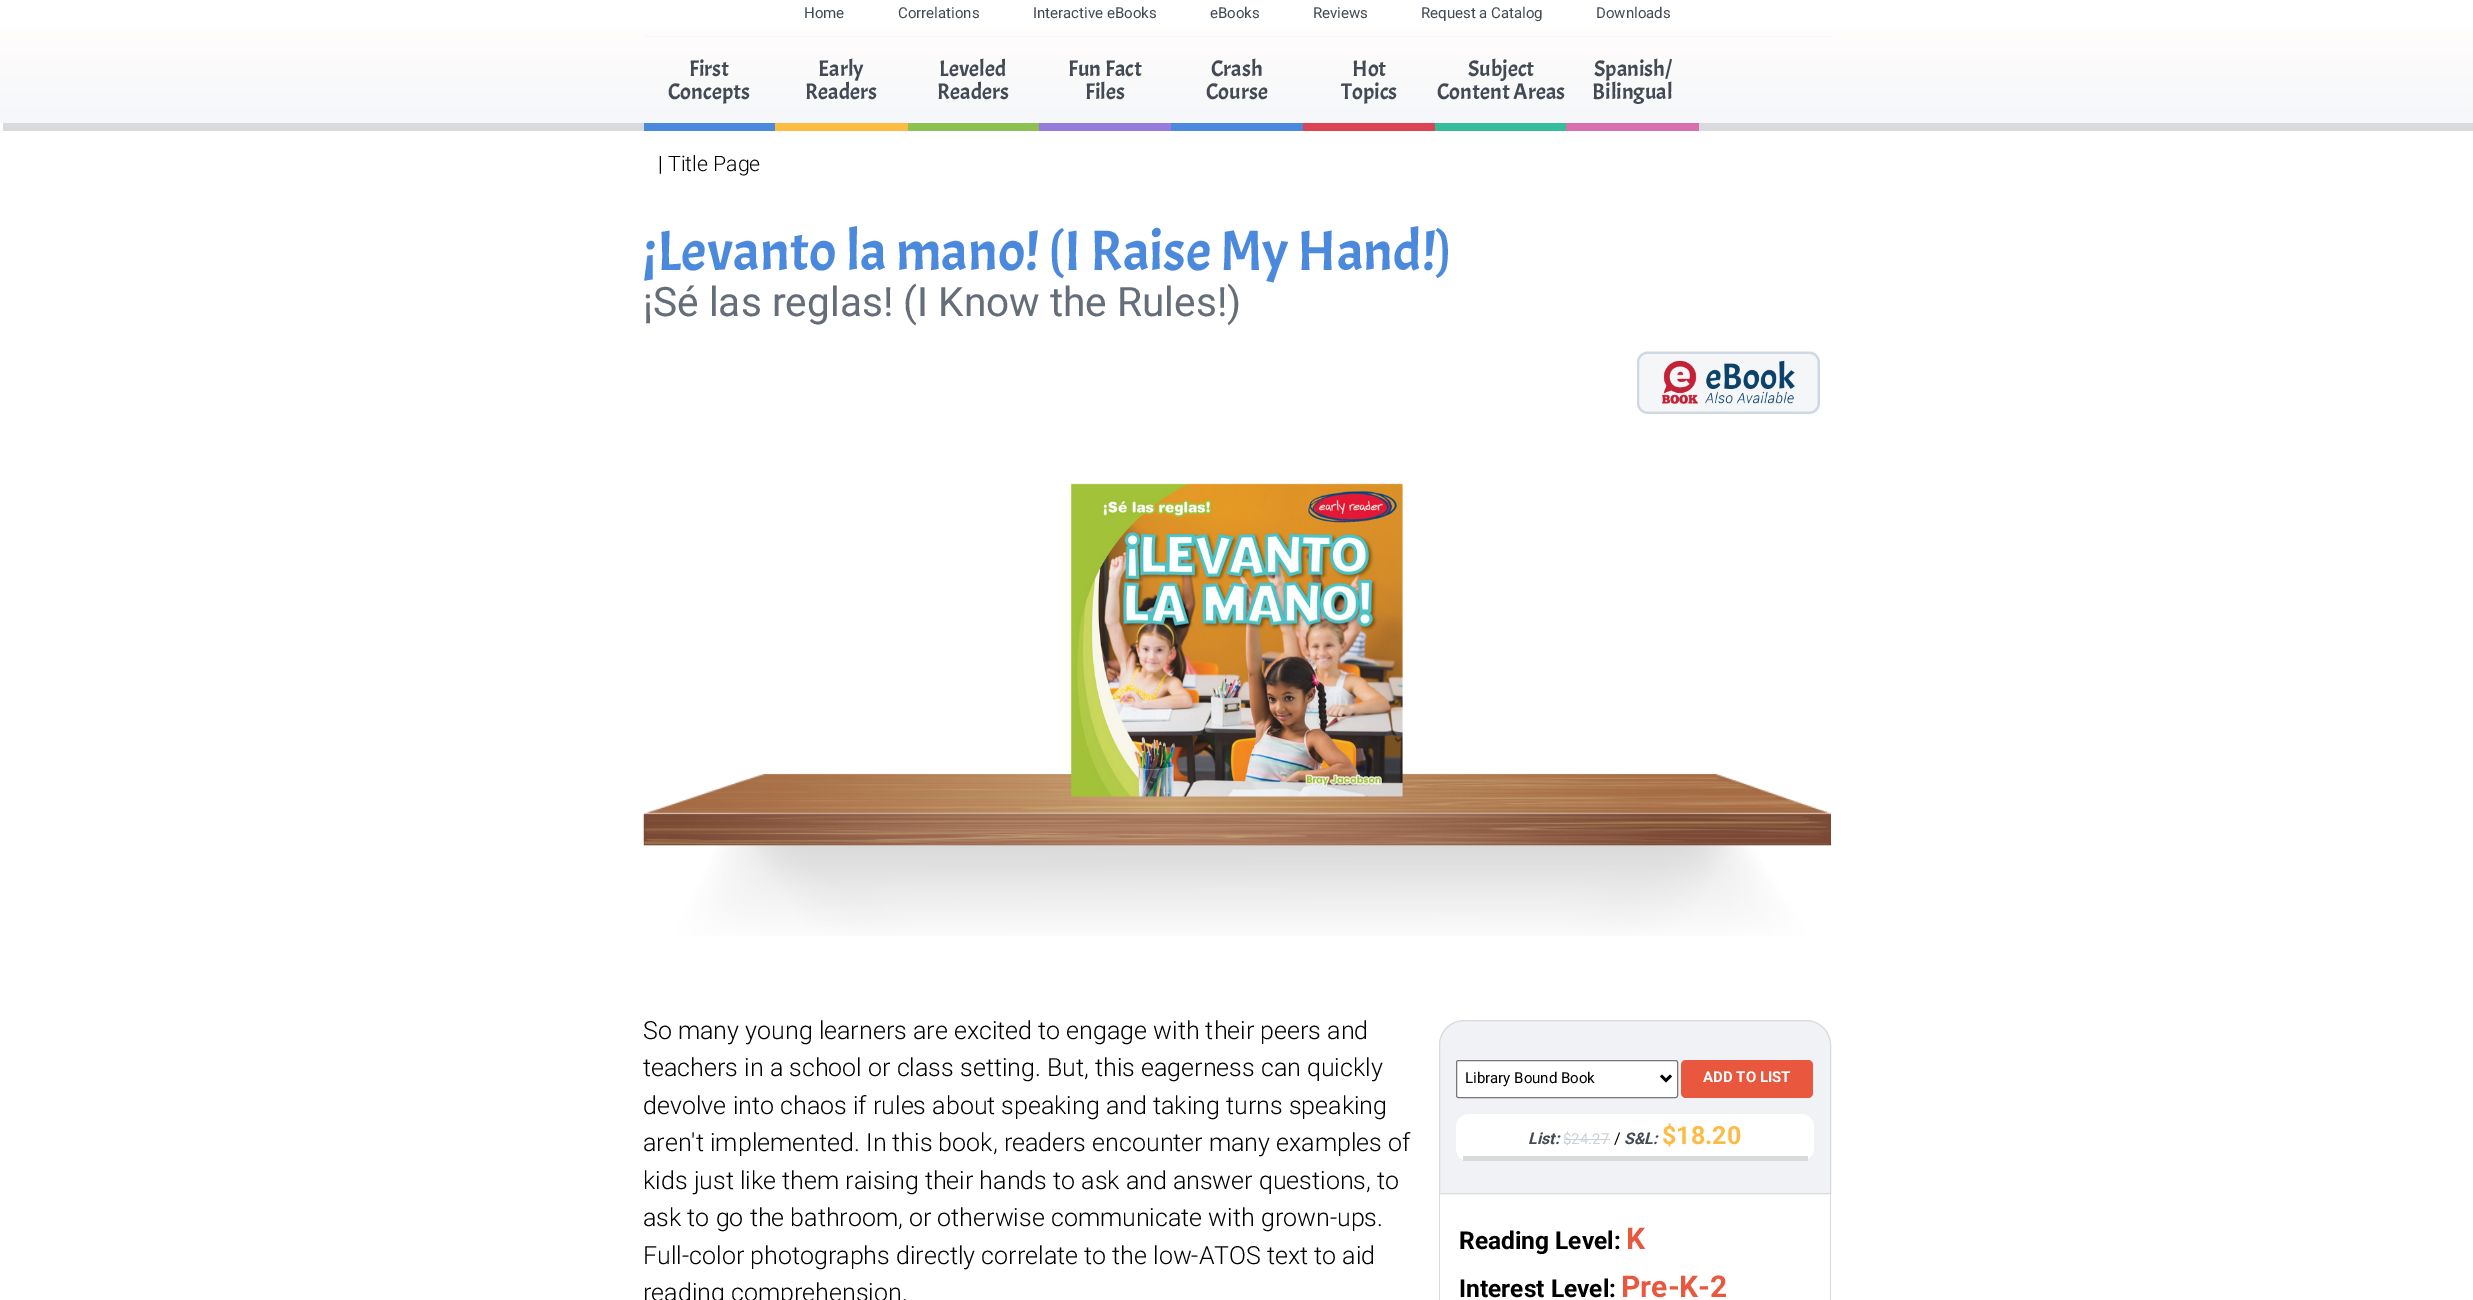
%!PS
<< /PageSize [2473 1300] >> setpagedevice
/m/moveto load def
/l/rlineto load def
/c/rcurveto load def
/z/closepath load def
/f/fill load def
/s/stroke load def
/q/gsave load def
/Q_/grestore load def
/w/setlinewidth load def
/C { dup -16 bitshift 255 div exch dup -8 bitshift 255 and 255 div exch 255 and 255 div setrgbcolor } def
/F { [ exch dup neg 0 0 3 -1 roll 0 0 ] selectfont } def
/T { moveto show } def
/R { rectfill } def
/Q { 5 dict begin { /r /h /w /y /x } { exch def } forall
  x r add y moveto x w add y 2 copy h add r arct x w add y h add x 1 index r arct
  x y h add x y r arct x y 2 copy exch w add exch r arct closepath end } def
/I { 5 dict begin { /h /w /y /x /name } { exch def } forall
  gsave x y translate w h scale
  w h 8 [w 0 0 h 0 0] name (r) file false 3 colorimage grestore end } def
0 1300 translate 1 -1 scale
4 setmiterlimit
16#FFFFFF C
0 0 2473 1300 R
q 0 28 m 2473 0 l 0 95 l -2473 0 l z clip newpath
<< /ShadingType 2 /ColorSpace /DeviceRGB /Coords [1237 -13 1237 123] /Extend [true true] /Function << /FunctionType 3 /Domain [0 1] /Functions [<< /FunctionType 2 /Domain [0 1] /C0 [1 1 1] /C1 [1 .988 .988] /N 1 >> << /FunctionType 2 /Domain [0 1] /C0 [1 .988 .988] /C1 [.961 .969 .98] /N 1 >>] /Bounds [.36] /Encode [0 1 0 1] >> >> shfill Q_
16#F5F7FA C
644 36 1189 1 R
/Roboto-Regular 15 F
16#434A54 C
(Home) 804 18 T
(Correlations) 898 18 T
(Interactive eBooks) 1033 18 T
(eBooks) 1210 18 T
(Reviews) 1313 18 T
(Request a Catalog) 1421 18 T
(Downloads) 1596 18 T
16#D8DADC C
3 123 2470 8 R
16#4A89DC C
644 123 131 8 R
/Acme-Regular 22.5 F
16#434A54 C
(First) 689 76 T
(Concepts) 668 99 T
16#FCBB42 C
775 123 133 8 R
16#434A54 C
(Early) 818 76 T
(Readers) 805 99 T
16#8CC152 C
908 123 131 8 R
16#434A54 C
(Leveled) 939 76 T
(Readers) 937 99 T
16#967ADC C
1039 123 132 8 R
16#434A54 C
(Fun Fact) 1068 76 T
(Files) 1085 99 T
16#4A89DC C
1171 123 132 8 R
16#434A54 C
(Crash) 1211 76 T
(Course) 1206 99 T
16#DA4453 C
1303 123 132 8 R
16#434A54 C
(Hot) 1352 76 T
(Topics) 1341 99 T
16#37BC9B C
1435 123 131 8 R
16#434A54 C
(Subject) 1468 76 T
(Content Areas) 1437 99 T
16#D770AD C
1566 123 133 8 R
16#434A54 C
(Spanish/) 1594 76 T
(Bilingual) 1592 99 T
/Roboto-Light 21.25 F
16#000000 C
(| Title Page) 658 171 T
/Acme-Regular 56.9 F
16#4A89DC C
(¡Levanto la mano! \(I Raise My Hand!\)) 643 270 T
/Roboto-Regular 40.6 F
16#656D78 C
(¡Sé las reglas! \(I Know the Rules!\)) 643 316 T
(1.rgb) 1637 351 183 63 I
(2.rgb) 643 773 1188 163 I
(3.rgb) 1070 483 333 314 I
/Roboto-Light 25 F
16#000000 C
(So many young learners are excited to engage with their peers and) 643 1039 T
(teachers in a school or class setting. But, this eagerness can quickly) 643 1076 T
(devolve into chaos if rules about speaking and taking turns speaking) 643 1114 T
(aren't implemented. In this book, readers encounter many examples of) 643 1151 T
(kids just like them raising their hands to ask and answer questions, to) 643 1189 T
(ask to go the bathroom, or otherwise communicate with grown-ups.) 643 1226 T
(Full-color photographs directly correlate to the low-ATOS text to aid) 643 1264 T
(reading comprehension.) 643 1301 T
16#F0F2F5 C
1464 1020.5 m 342 0 l 13.5 0 24.5 11 24.5 24.5 c 0 148.5 l -391 0 l 0 -148.5 l 0 -13.5 11 -24.5 24.5 -24.5 c z q f Q_
16#D8DADC C
s
16#FFFFFF C
1456.5 1060.5 221 37 2 Q q f Q_
16#767676 C
s
16#000000 C
2.5 w
1661 1075.5 m 5 5 l 5 -5 l s
/Roboto-Regular 15 F
(Library Bound Book) 1465 1083 T
16#E9573F C
1681 1060 132 38 5 Q f
/Roboto-Bold 15 F
16#FFFFFF C
(ADD TO LIST) 1703 1082 T
1456 1114 358 47 13 Q f
16#D8DADC C
1463 1156 345 5 R
/Roboto-BoldItalic 16 F
16#434A54 C
(List:) 1528 1144 T
/Roboto-Regular 15 F
16#CCD1D9 C
($24.27) 1563 1144 T
1564 1139 46 1 R
/Roboto-Regular 16 F
16#000000 C
(/) 1614 1144 T
/Roboto-BoldItalic 16 F
16#434A54 C
(S&L:) 1624 1144 T
/Roboto-Bold 25 F
16#FCBB42 C
($18.20) 1662 1144 T
16#D8DADC C
1439 1194 m 392 0 l 0 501 l 0 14 -11 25 -25 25 c -342 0 l -14 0 -25 -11 -25 -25 c z 1440 1194 m 390 0 l 0 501 l 0 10 -11 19 -24 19 c -342 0 l -13 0 -24 -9 -24 -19 c z eofill
/Roboto-Bold 24.5 F
16#000000 C
(Reading Level:) 1459 1249 T
/Roboto-Bold 30 F
16#E9573F C
(K) 1626 1249 T
/Roboto-Bold 24.5 F
16#000000 C
(Interest Level:) 1459 1297 T
/Roboto-Bold 30 F
16#E9573F C
(Pre-K-2) 1621 1297 T
showpage
